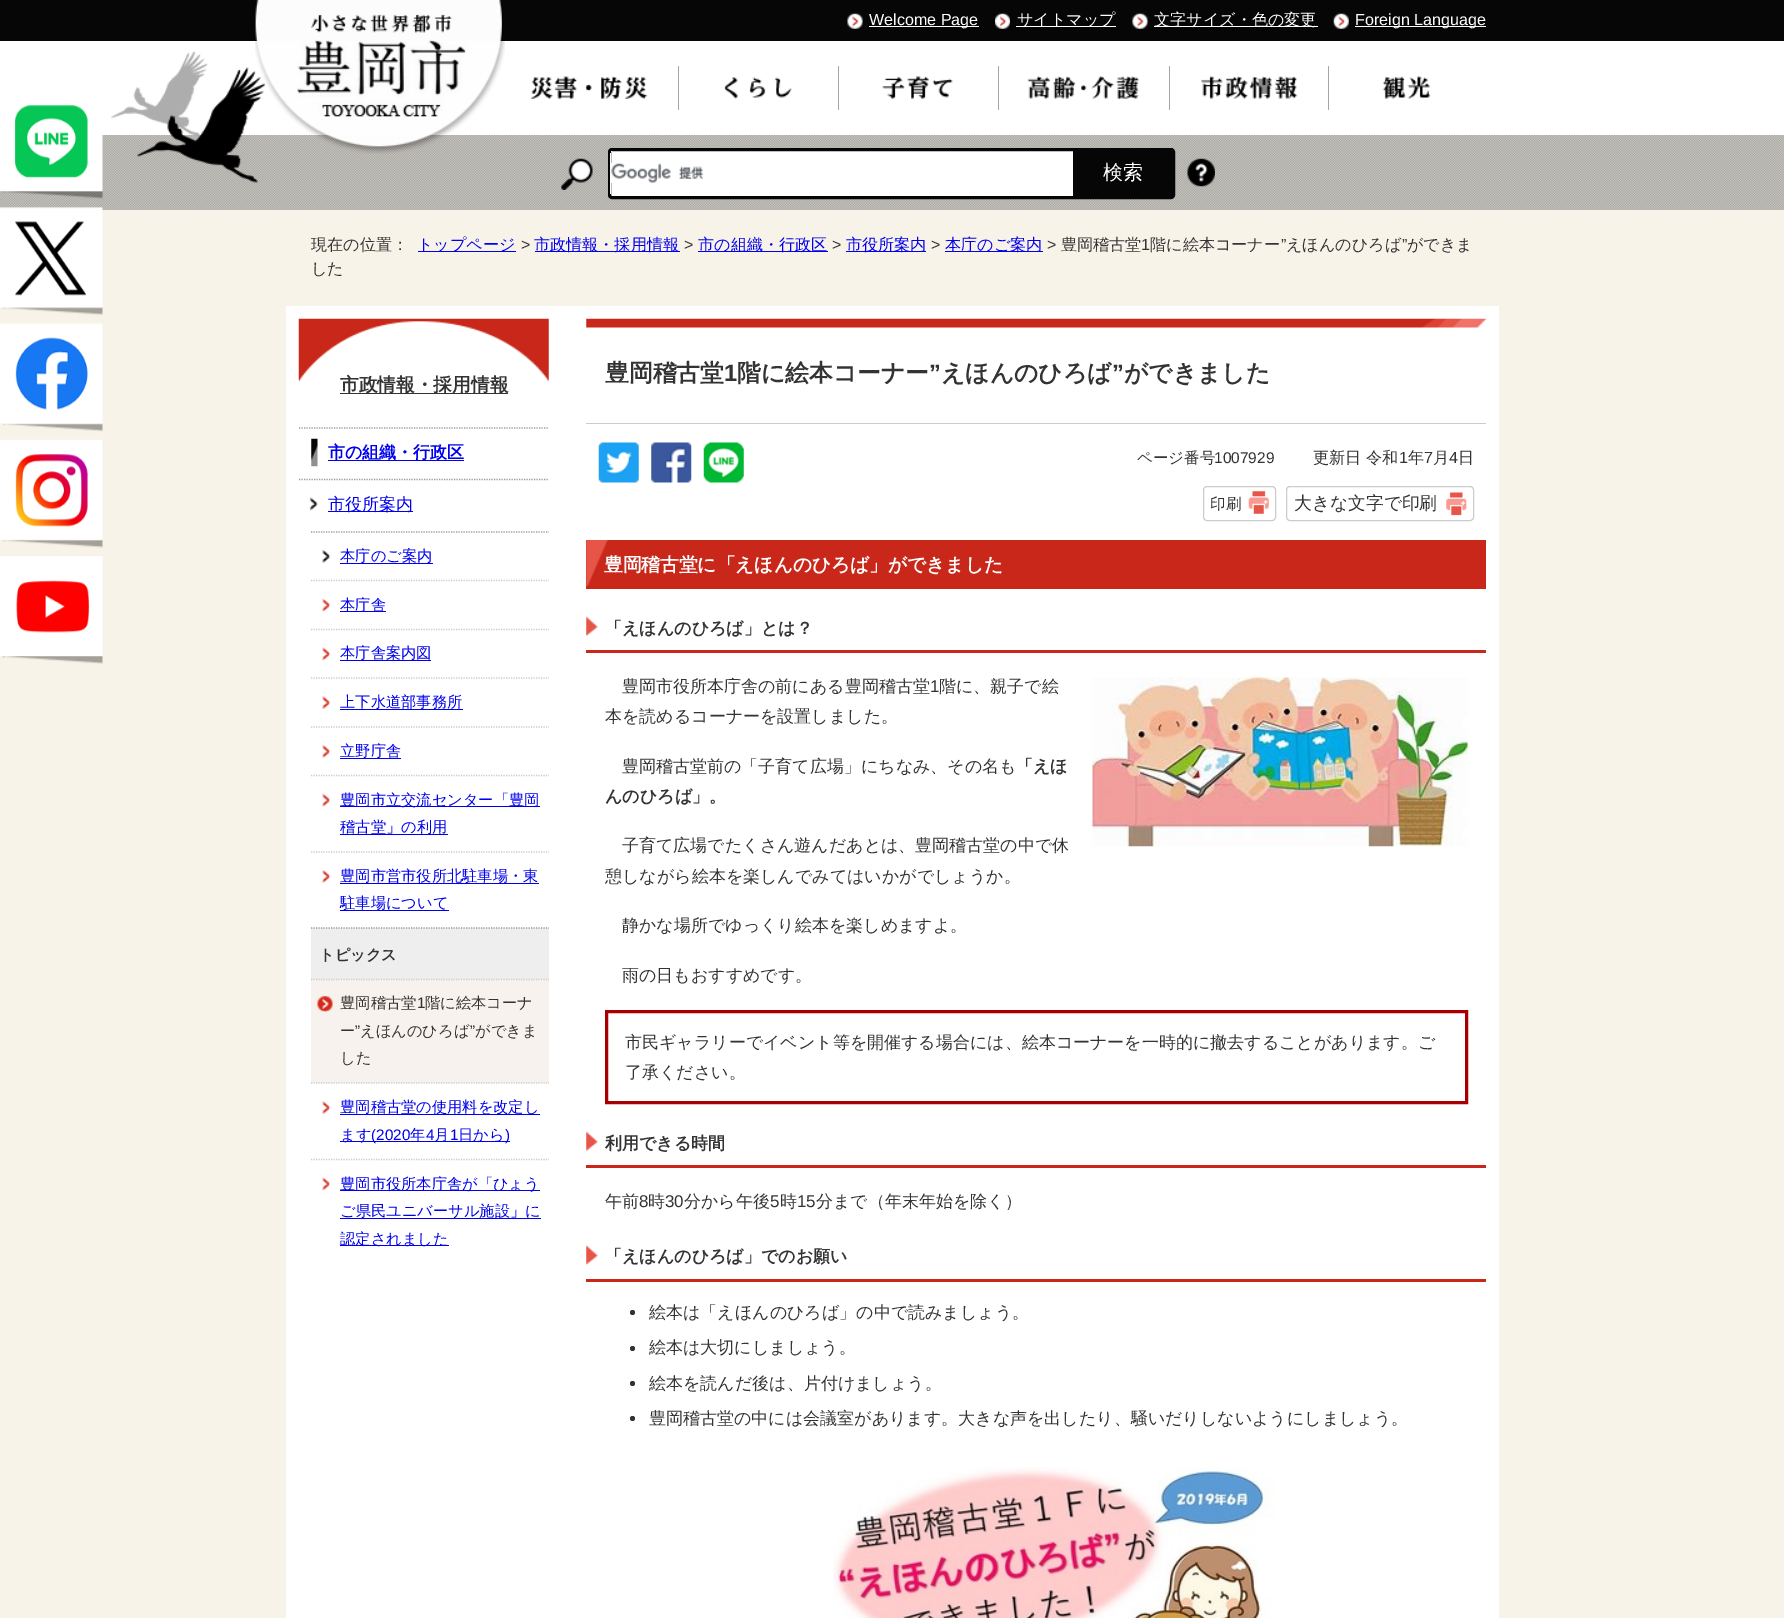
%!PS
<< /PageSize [1784 1618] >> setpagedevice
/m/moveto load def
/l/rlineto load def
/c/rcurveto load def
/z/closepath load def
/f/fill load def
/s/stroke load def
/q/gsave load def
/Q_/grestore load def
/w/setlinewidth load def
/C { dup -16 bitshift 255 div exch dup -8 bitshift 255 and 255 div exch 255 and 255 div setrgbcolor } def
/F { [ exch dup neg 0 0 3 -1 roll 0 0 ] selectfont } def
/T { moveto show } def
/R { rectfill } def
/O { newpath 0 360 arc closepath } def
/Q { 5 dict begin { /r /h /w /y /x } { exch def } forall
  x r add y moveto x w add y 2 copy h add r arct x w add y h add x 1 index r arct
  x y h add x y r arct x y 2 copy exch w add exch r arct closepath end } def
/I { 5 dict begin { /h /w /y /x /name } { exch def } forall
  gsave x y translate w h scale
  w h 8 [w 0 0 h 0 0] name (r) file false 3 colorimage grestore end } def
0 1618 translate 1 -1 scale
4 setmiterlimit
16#F8F3E8 C
0 0 1784 1618 R
(24.rgb) 0 135 1784 75 I
(1.rgb) 2 191 101 8 I
16#FFFFFF C
0 41 1784 94 R
(2.rgb) 0 105 103 87 I
(3.rgb) 2 307 101 8 I
(4.rgb) 0 207 103 102 I
(5.rgb) 2 423 101 9 I
(6.rgb) 0 323 103 102 I
(7.rgb) 2 539 101 9 I
(8.rgb) 0 439 103 102 I
(9.rgb) 2 656 101 8 I
(10.rgb) 0 556 103 100 I
16#060606 C
0 0 1784 41 R
(17.rgb) 111 51 154 132 I
(11.rgb) 255 0 250 154 I
(12.rgb) 297 14 169 103 I
(13.rgb) 847 13 16 16 I
16#FFFFFF C
869 26 110 1 R
/LiberationSans-Regular 16.1 F
(Welcome Page) 869 25 T
(14.rgb) 995 13 15 16 I
1016 26 100 1 R
/WenQuanYiZenHei-Medium 16.1 F
(サイトマップ) 1017 25 T
(15.rgb) 1132 13 16 16 I
1154 26 164 1 R
(文字サイズ・色の変更) 1154 25 T
(16.rgb) 1333 13 16 16 I
1355 26 131 1 R
/LiberationSans-Regular 16.1 F
(Foreign Language) 1355 25 T
(18.rgb) 531 76 117 23 I
16#A6A6A6 C
678 66 1 44 R
(19.rgb) 724 77 68 22 I
838 66 1 44 R
(20.rgb) 882 76 71 23 I
998 66 1 44 R
(21.rgb) 1027 76 112 23 I
1169 66 1 44 R
(22.rgb) 1201 76 97 23 I
1328 66 1 44 R
(23.rgb) 1382 76 49 23 I
(25.rgb) 561 158 32 32 I
16#FFFFFF C
609.5 149.5 564 48 2.5 Q q f Q_
16#060606 C
3 w
s
16#FFFFFF C
610 153 1 41 R
611 151 1 1 R
(26.rgb) 611 163 93 20 I
16#060606 C
1073 150 m 99 0 l .5 0 1 .5 1 1 c 0 44 l 0 .5 -.5 1 -1 1 c -99 0 l z f
/WenQuanYiZenHei-Medium 20 F
16#FFFFFF C
(検索) 1103 179 T
(27.rgb) 1187 158 28 29 I
/WenQuanYiZenHei-Medium 16.1 F
16#333333 C
(現在の位置：) 311 250 T
16#0000EE C
418 251 98 1 R
(トップページ) 417 250 T
/LiberationSans-Regular 16.1 F
16#333333 C
(>) 521 250 T
16#0000EE C
535 251 145 1 R
/WenQuanYiZenHei-Medium 16.1 F
(市政情報・採用情報) 534 250 T
/LiberationSans-Regular 16.1 F
16#333333 C
(>) 684 250 T
16#0000EE C
698 251 130 1 R
/WenQuanYiZenHei-Medium 16.1 F
(市の組織・行政区) 698 250 T
/LiberationSans-Regular 16.1 F
16#333333 C
(>) 832 250 T
16#0000EE C
846 251 80 1 R
/WenQuanYiZenHei-Medium 16.1 F
(市役所案内) 846 250 T
/LiberationSans-Regular 16.1 F
16#333333 C
(>) 931 250 T
16#0000EE C
945 251 98 1 R
/WenQuanYiZenHei-Medium 16.1 F
(本庁のご案内) 945 250 T
/LiberationSans-Regular 16.1 F
16#333333 C
(>) 1047 250 T
/WenQuanYiZenHei-Medium 16.1 F
(豊岡稽古堂) 1061 250 T
/LiberationSans-Regular 16.1 F
(1) 1141 250 T
/WenQuanYiZenHei-Medium 16.1 F
(階に絵本コーナー) 1150 250 T
/LiberationSans-Regular 16.1 F
(”) 1281 250 T
/WenQuanYiZenHei-Medium 16.1 F
(えほんのひろば) 1286 250 T
/LiberationSans-Regular 16.1 F
(”) 1402 250 T
/WenQuanYiZenHei-Medium 16.1 F
(ができま) 1407 250 T
(した) 311 274 T
16#FFFFFF C
286 306 1213 1312 R
(28.rgb) 298 318 251 64 I
16#333333 C
340 393 168 1 R
/WenQuanYiZenHei-Bold 18.7 F
(市政情報・採用情報) 340 391 T
(29.rgb) 311 438 7 29 I
16#999999 C
1.2 w
[1.25 1.25] 0 setdash
299 428 m 250 0 l s
16#0000EE C
328 460 136 1 R
/WenQuanYiZenHei-Bold 17 F
(市の組織・行政区) 328 458 T
(30.rgb) 309 497 9 14 I
16#999999 C
299 479.5 m 250 0 l s
16#0000EE C
328 511 85 1 R
/WenQuanYiZenHei-Medium 17 F
(市役所案内) 328 510 T
(31.rgb) 322 549 9 14 I
16#999999 C
311 532 m 238 0 l s
16#0000EE C
340 563 93 1 R
/WenQuanYiZenHei-Medium 15.25 F
(本庁のご案内) 340 561 T
(32.rgb) 322 598 9 14 I
16#CCCCCC C
311 580.5 m 238 0 l s
16#0000EE C
340 611 46 1 R
(本庁舎) 340 610 T
(33.rgb) 322 647 9 14 I
16#CCCCCC C
311 629.5 m 238 0 l s
16#0000EE C
340 660 91 1 R
(本庁舎案内図) 340 658 T
(34.rgb) 322 696 9 13 I
16#CCCCCC C
311 678 m 238 0 l s
16#0000EE C
340 709 123 1 R
(上下水道部事務所) 340 707 T
(35.rgb) 322 745 9 13 I
16#CCCCCC C
311 727 m 238 0 l s
16#0000EE C
(立野庁舎) 340 756 T
340 758 61 1 R
(32.rgb) 322 793 9 14 I
16#CCCCCC C
311 775.5 m 238 0 l s
16#0000EE C
340 806 200 1 R
(豊岡市立交流センター「豊岡) 340 805 T
340 834 108 1 R
(稽古堂」の利用) 340 832 T
(35.rgb) 322 870 9 13 I
16#CCCCCC C
311 852 m 238 0 l s
16#0000EE C
340 883 199 1 R
(豊岡市営市役所北駐車場・東) 340 881 T
340 910 109 1 R
(駐車場について) 340 908 T
16#EEEEEE C
311 928 238 51 R
16#999999 C
311 928 m 238 0 l s
/WenQuanYiZenHei-Bold 15.25 F
16#333333 C
(トピックス) 319 960 T
16#F7F2ED C
311 979 238 104 R
(36.rgb) 317 996 16 16 I
16#CCCCCC C
311 979.5 m 238 0 l s
/WenQuanYiZenHei-Medium 15.25 F
16#333333 C
(豊岡稽古堂) 340 1008 T
/LiberationSans-Regular 15.25 F
(1) 417 1008 T
/WenQuanYiZenHei-Medium 15.25 F
(階に絵本コーナ) 425 1008 T
/LiberationSans-Regular 15.25 F
(”) 355 1036 T
/WenQuanYiZenHei-Medium 15.25 F
(えほんのひろば) 360 1036 T
/LiberationSans-Regular 15.25 F
(”) 470 1036 T
/WenQuanYiZenHei-Medium 15.25 F
(ができま) 475 1036 T
(ー) 340 1036 T
(した) 340 1063 T
(34.rgb) 322 1101 9 13 I
16#CCCCCC C
311 1083 m 238 0 l s
16#0000EE C
340 1114 200 1 R
(豊岡稽古堂の使用料を改定し) 340 1112 T
340 1141 170 1 R
(ます) 340 1140 T
/LiberationSans-Regular 15.25 F
(\(2020) 371 1140 T
/WenQuanYiZenHei-Medium 15.25 F
(年) 410 1140 T
/LiberationSans-Regular 15.25 F
(4) 426 1140 T
/WenQuanYiZenHei-Medium 15.25 F
(月) 434 1140 T
/LiberationSans-Regular 15.25 F
(1) 450 1140 T
/WenQuanYiZenHei-Medium 15.25 F
(日から) 458 1140 T
/LiberationSans-Regular 15.25 F
(\)) 505 1140 T
(33.rgb) 322 1177 9 14 I
16#CCCCCC C
311 1159.5 m 238 0 l s
16#0000EE C
340 1190 200 1 R
/WenQuanYiZenHei-Medium 15.25 F
(豊岡市役所本庁舎が「ひょう) 340 1189 T
340 1218 201 1 R
(ご県民ユニバーサル施設」に) 340 1216 T
340 1245 109 1 R
(認定されました) 340 1244 T
(37.rgb) 586 318 901 10 I
16#CCCCCC C
586 423 900 1 R
/WenQuanYiZenHei-Bold 23.75 F
16#333333 C
(豊岡稽古堂) 605 381 T
/LiberationSans-Bold 23.75 F
(1) 724 381 T
/WenQuanYiZenHei-Bold 23.75 F
(階に絵本コーナー) 737 381 T
/LiberationSans-Bold 23.75 F
(”) 929 381 T
/WenQuanYiZenHei-Bold 23.75 F
(えほんのひろば) 941 381 T
/LiberationSans-Bold 23.75 F
(”) 1112 381 T
/WenQuanYiZenHei-Bold 23.75 F
(ができました) 1124 381 T
(38.rgb) 598 442 41 41 I
(39.rgb) 651 442 41 41 I
(40.rgb) 703 442 41 41 I
/WenQuanYiZenHei-Medium 15.5 F
(ページ番号) 1137 463 T
/LiberationSans-Regular 15.5 F
(1007929) 1214 463 T
/WenQuanYiZenHei-Medium 16.1 F
(更新日 令和) 1313 463 T
/LiberationSans-Regular 16.1 F
(1) 1399 463 T
/WenQuanYiZenHei-Medium 16.1 F
(年) 1408 463 T
/LiberationSans-Regular 16.1 F
(7) 1424 463 T
/WenQuanYiZenHei-Medium 16.1 F
(月) 1433 463 T
/LiberationSans-Regular 16.1 F
(4) 1449 463 T
/WenQuanYiZenHei-Medium 16.1 F
(日) 1458 463 T
16#CCCCCC C
1 w
[] 0 setdash
1203.5 486.5 72 34 3.5 Q s
(41.rgb) 1248 491 21 23 I
/WenQuanYiZenHei-Medium 15.5 F
16#333333 C
(印刷) 1210 509 T
16#CCCCCC C
1286.5 486.5 187 34 3.5 Q s
(42.rgb) 1446 492 21 24 I
/WenQuanYiZenHei-Medium 17.75 F
16#333333 C
(大きな文字で印刷) 1294 509 T
16#C8271A C
586 540 900 49 R
(43.rgb) 586 540 22 47 I
/WenQuanYiZenHei-Bold 18.7 F
16#FFFFFF C
(豊岡稽古堂に「えほんのひろば」ができました) 604 571 T
(44.rgb) 586 616 12 21 I
16#C8271A C
586 650 900 3 R
/WenQuanYiZenHei-Bold 17 F
16#333333 C
(「えほんのひろば」とは？) 605 634 T
/WenQuanYiZenHei-Medium 17 F
(豊岡市役所本庁舎の前にある豊岡稽古堂) 622 692 T
/LiberationSans-Regular 17 F
(1) 930 692 T
/WenQuanYiZenHei-Medium 17 F
(階に、親子で絵) 939 692 T
(本を読めるコーナーを設置しました。) 605 722 T
(45.rgb) 1092 677 376 170 I
(豊岡稽古堂前の「子育て広場」にちなみ、その名も) 622 772 T
/WenQuanYiZenHei-Bold 17 F
(「えほ) 1016 772 T
(んのひろば」。) 605 802 T
/WenQuanYiZenHei-Medium 17 F
(子育て広場でたくさん遊んだあとは、豊岡稽古堂の中で休) 622 851 T
(憩しながら絵本を楽しんでみてはいかがでしょうか。) 605 882 T
(静かな場所でゆっくり絵本を楽しめますよ。) 622 931 T
(雨の日もおすすめです。) 622 981 T
16#A80000 C
3 w
606.5 1011.5 860 91 rectstroke
16#333333 C
(市民ギャラリーでイベント等を開催する場合には、絵本コーナーを一時的に撤去することがあります。ご) 625 1048 T
(了承ください。) 625 1078 T
(44.rgb) 586 1131 12 21 I
16#C8271A C
586 1165 900 3 R
/WenQuanYiZenHei-Bold 17 F
16#333333 C
(利用できる時間) 605 1149 T
/WenQuanYiZenHei-Medium 17 F
(午前) 605 1207 T
/LiberationSans-Regular 17 F
(8) 639 1207 T
/WenQuanYiZenHei-Medium 17 F
(時) 648 1207 T
/LiberationSans-Regular 17 F
(30) 665 1207 T
/WenQuanYiZenHei-Medium 17 F
(分から午後) 684 1207 T
/LiberationSans-Regular 17 F
(5) 770 1207 T
/WenQuanYiZenHei-Medium 17 F
(時) 780 1207 T
/LiberationSans-Regular 17 F
(15) 797 1207 T
/WenQuanYiZenHei-Medium 17 F
(分まで（年末年始を除く）) 816 1207 T
(46.rgb) 586 1245 12 20 I
16#C8271A C
586 1279 900 3 R
/WenQuanYiZenHei-Bold 17 F
16#333333 C
(「えほんのひろば」でのお願い) 605 1262 T
632.5 1312.5 2.5 O f
/WenQuanYiZenHei-Medium 17 F
(絵本は「えほんのひろば」の中で読みましょう。) 649 1318 T
632.5 1348.5 2.5 O f
(絵本は大切にしましょう。) 649 1353 T
632.5 1383.5 2.5 O f
(絵本を読んだ後は、片付けましょう。) 649 1389 T
632.5 1418.5 2.5 O f
(豊岡稽古堂の中には会議室があります。大きな声を出したり、騒いだりしないようにしましょう。) 649 1424 T
(47.rgb) 833 1467 442 151 I
showpage
